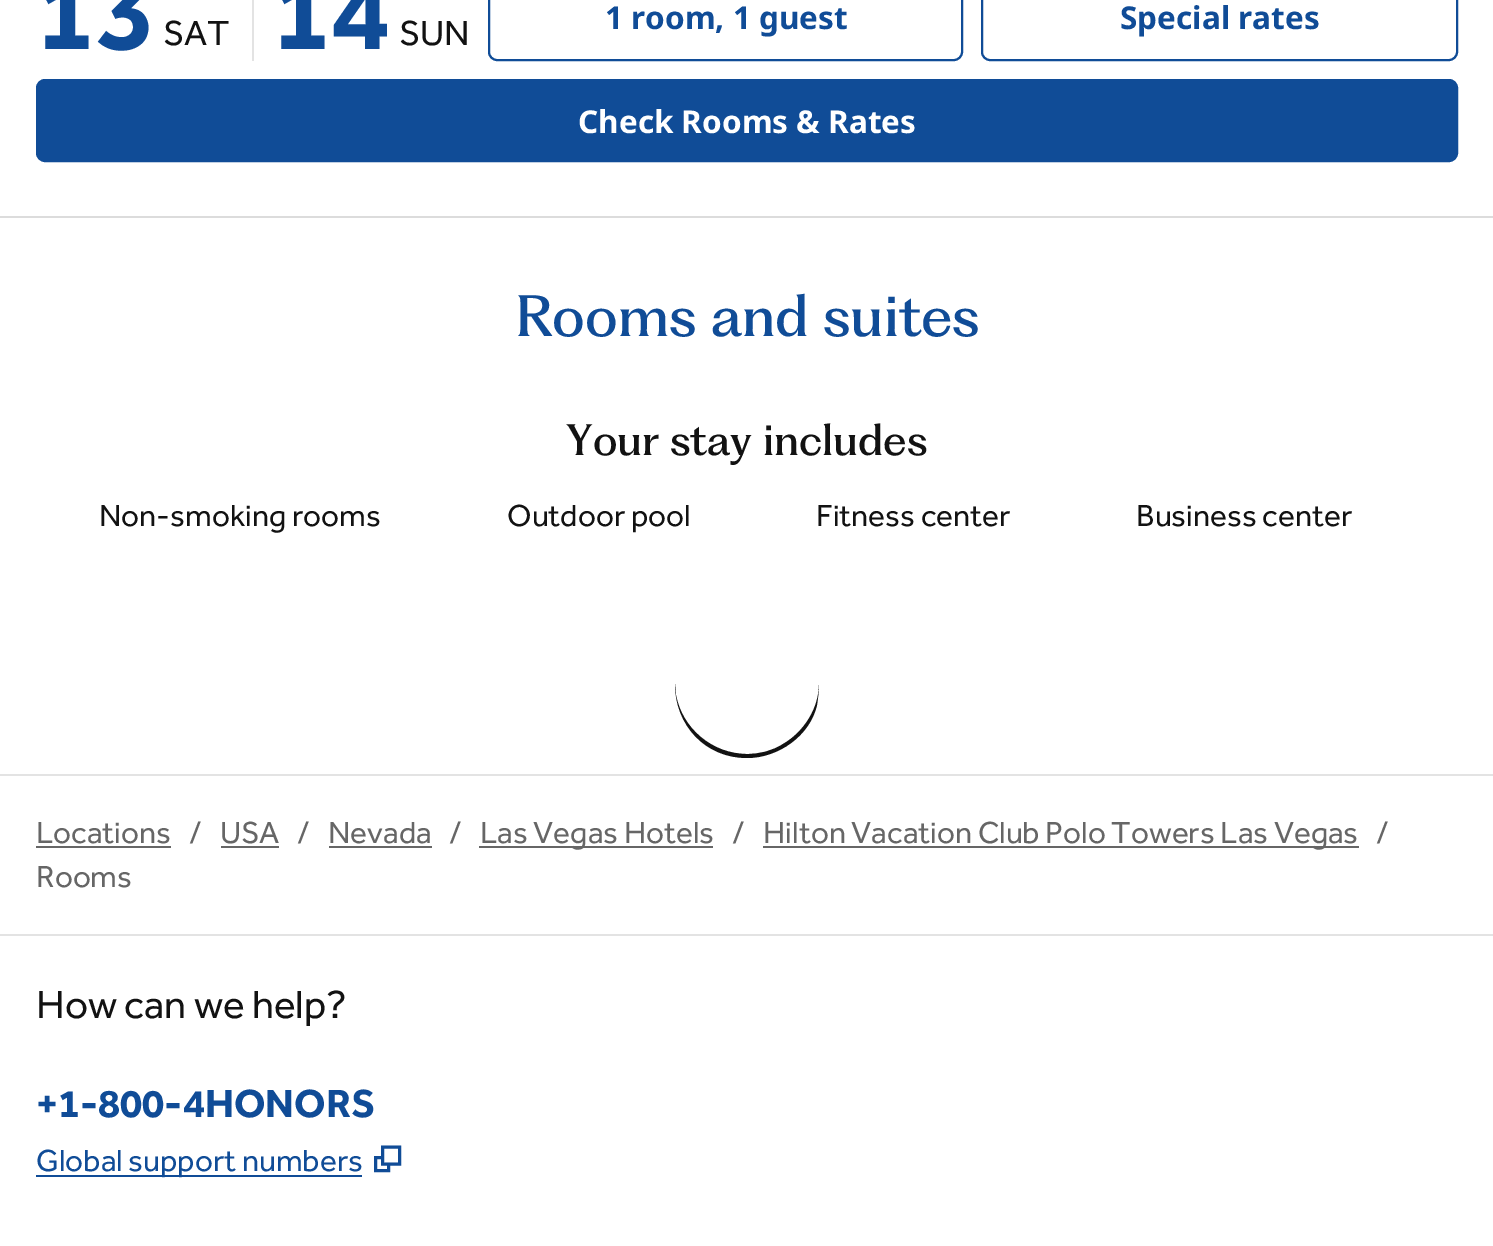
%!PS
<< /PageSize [1493 1246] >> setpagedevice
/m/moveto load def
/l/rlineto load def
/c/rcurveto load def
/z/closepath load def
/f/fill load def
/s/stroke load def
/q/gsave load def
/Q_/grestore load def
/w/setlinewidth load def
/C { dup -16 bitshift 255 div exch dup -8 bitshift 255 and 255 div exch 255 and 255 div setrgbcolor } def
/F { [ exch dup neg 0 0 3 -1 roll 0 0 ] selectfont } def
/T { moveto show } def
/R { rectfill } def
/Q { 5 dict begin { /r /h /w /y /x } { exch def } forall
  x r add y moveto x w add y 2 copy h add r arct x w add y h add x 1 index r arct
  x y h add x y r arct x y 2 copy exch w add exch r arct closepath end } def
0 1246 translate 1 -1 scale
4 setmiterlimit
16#FFFFFF C
0 0 1493 1246 R
16#DCDCDC C
0 216 1493 2 R
/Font-Bold 108 F
16#104C97 C
(13) 36 49 T
/Font-Regular 36 F
16#121212 C
(SAT) 163 45 T
16#E3E3E3 C
252 0 2 61 R
/Font-Bold 108 F
16#104C97 C
(14) 272 49 T
/Font-Regular 36 F
16#121212 C
(SUN) 399 45 T
16#104C97 C
2 w
489 -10 473 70 8 Q s
/NotoSans-Bold 31.5 F
(1 room, 1 guest) 605 29 T
982 -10 475 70 8 Q s
(Special rates) 1120 29 T
37 80 1420 81 8 Q q f Q_
s
16#FFFFFF C
(Check Rooms & Rates) 578 133 T
/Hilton-Medium 54 F
16#104C97 C
(Rooms and suites) 515 336 T
/Hilton-Medium 40.5 F
16#121212 C
(Your stay includes) 566 455 T
/Font-Regular 31.5 F
(Non-smoking rooms) 99 526 T
(Outdoor pool) 507 526 T
(Fitness center) 816 526 T
(Business center) 1136 526 T
675 684 m 1 11 l 6 33 36 59 71 59 c 13 0 25 -3 36 -10 c 21 -12 36 -36 36 -60 c 0 7 -1 14 -2 21 c -7 31 -39 53 -70 53 c -42 0 -72 -33 -72 -74 c z f
16#E3E3E3 C
0 774 1493 2 R
16#666666 C
(Locations) 36 843 T
36 846 135 2 R
(/) 189 843 T
(USA) 220 843 T
221 846 58 2 R
(/) 297 843 T
(Nevada) 328 843 T
329 846 103 2 R
(/) 449 843 T
479 846 234 2 R
(Las Vegas Hotels) 480 843 T
(/) 732 843 T
763 846 596 2 R
(Hilton Vacation Club Polo Towers Las Vegas) 763 843 T
(/) 1376 843 T
(Rooms) 36 887 T
16#E3E3E3 C
0 934 1493 2 R
/Font-Regular 40.5 F
16#121212 C
(How can we help?) 36 1018 T
/Font-Bold 40.5 F
16#104C97 C
(+1-800-4HONORS) 36 1117 T
36 1175 326 2 R
/Font-Regular 31.5 F
(Global support numbers) 36 1171 T
3.1 w
382.5 1147 m 17 0 l 0 17 l -17 0 l z 375.5 1170.5 m 0 -13 l 7 0 l 0 6.5 l 6 0 l 0 6.5 l z s
showpage
